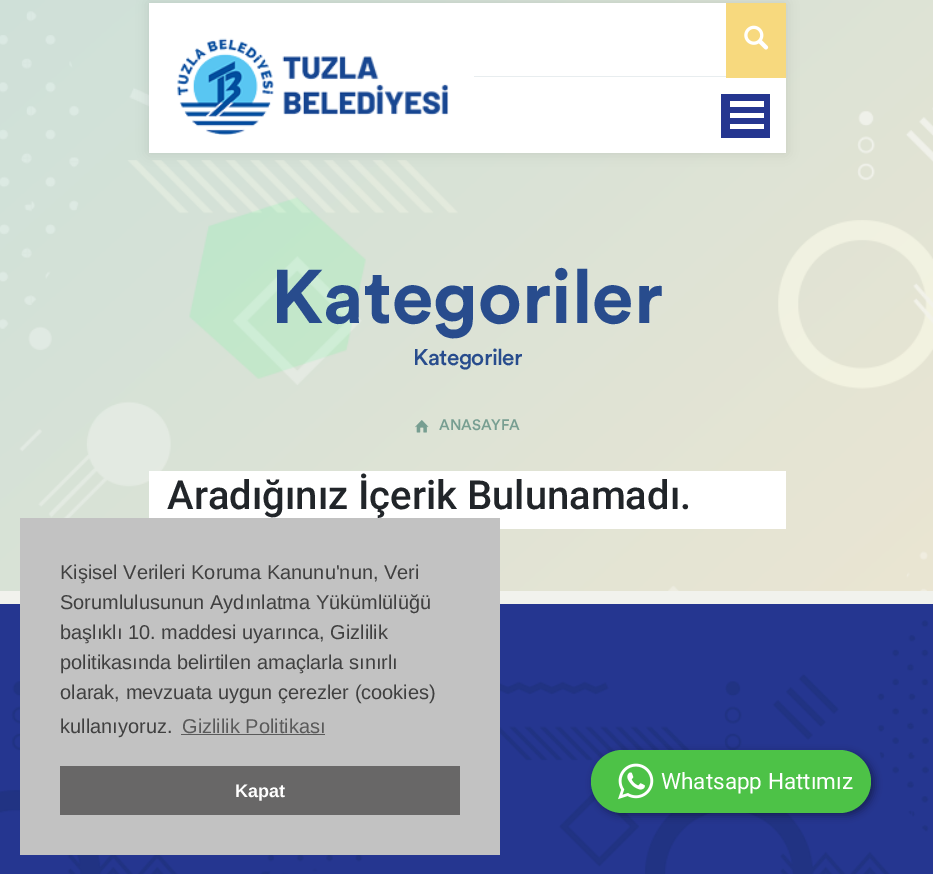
%!PS
<< /PageSize [933 874] /PageUsesTransparency true >> setpagedevice
/m/moveto load def
/f/fill load def
/C { dup -16 bitshift 255 div exch dup -8 bitshift 255 and 255 div exch 255 and 255 div setrgbcolor } def
/F { [ exch dup neg 0 0 3 -1 roll 0 0 ] selectfont } def
/T { moveto show } def
/R { rectfill } def
/A { dup .setfillconstantalpha .setstrokeconstantalpha } def
/Q { 5 dict begin { /r /h /w /y /x } { exch def } forall
  x r add y moveto x w add y 2 copy h add r arct x w add y h add x 1 index r arct
  x y h add x y r arct x y 2 copy exch w add exch r arct closepath end } def
/S { 12 dict begin { /a /b /q /h /w /y /x } { exch def } forall gsave /was 0 def
  9 -2 -9 { dup b mul 4 div /e exch def 1 sub .425 mul 2.718 exch exp 1 add a .99 .min exch div /now exch def
    1 1 now sub 1 was sub div sub A /was now def
    w h .min e 2 mul add 0 gt { x e sub y e sub w e 2 mul add h e 2 mul add
      q e add b .6 mul add w h .min 2 div e add .min 0 .max Q fill } if } for grestore end } def
/I { 5 dict begin { /h /w /y /x /name } { exch def } forall
  gsave x y translate w h scale
  w h 8 [w 0 0 h 0 0] name (r) file false 3 colorimage grestore end } def
0 .pushpdf14devicefilter
0 874 translate 1 -1 scale
4 setmiterlimit
16#FFFFFF C
0 0 933 874 R
(3.rgb) 0 0 933 591 I
16#000000 C
149 3 637 150 0 6 .1 S
16#FFFFFF C
149 3 637 150 R
(1.rgb) 177 38 272 97 I
16#E8EDEF C
474 76 252 1 R
16#F7D97E C
726 3 60 75 R
(2.rgb) 744 25 25 25 I
16#253690 C
721 94 49 44 R
16#FFFFFF C
730 101 34 6 R
730 113 34 5 R
730 124 34 5 R
/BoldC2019-Bold 75 F
16#284C8D C
(Kategoriler) 271 323 T
/BoldC2019-Medium 22.5 F
413 365 m -.6 0 (Kategoriler) ashow
(4.rgb) 415 420 14 13 I
/BoldC2019-Medium 15 F
16#779E91 C
(ANASAYFA) 439 430 T
16#FFFFFF C
149 471 637 58 R
/Roboto-Medium 40 F
16#212529 C
(Aradığınız İçerik Bulunamadı.) 167 509 T
16#253690 C
0 604 933 270 R
(5.rgb) 0 620 929 254 I
16#F1F2ED C
0 591 933 13 R
16#C2C2C2 C
20 518 480 337 R
/LiberationSans-Regular 20 F
16#404040 C
(Kişisel Verileri Koruma Kanunu'nun, Veri) 60 579 T
(Sorumlulusunun Aydınlatma Yükümlülüğü) 60 609 T
(başlıklı 10. maddesi uyarınca, Gizlilik) 60 639 T
(politikasında belirtilen amaçlarla sınırlı) 60 669 T
(olarak, mevzuata uygun çerezler \(cookies\)) 60 699 T
(kullanıyoruz.) 60 733 T
16#5A5A5A C
(Gizlilik Politikası) 182 733 T
181 734 144 1 R
16#686767 C
60 766 400 49 R
/LiberationSans-Bold 18 F
16#FFFFFF C
(Kapat) 235 797 T
16#000000 C
594 753 280 62 31 4 .4 S
16#4DC247 C
591 750 280 63 31.5 Q f
(6.rgb) 618 763 36 37 I
/Roboto-Regular 22.5 F
16#FFFFFF C
(Whatsapp Hattımız) 661 789 T
.poppdf14devicefilter showpage
